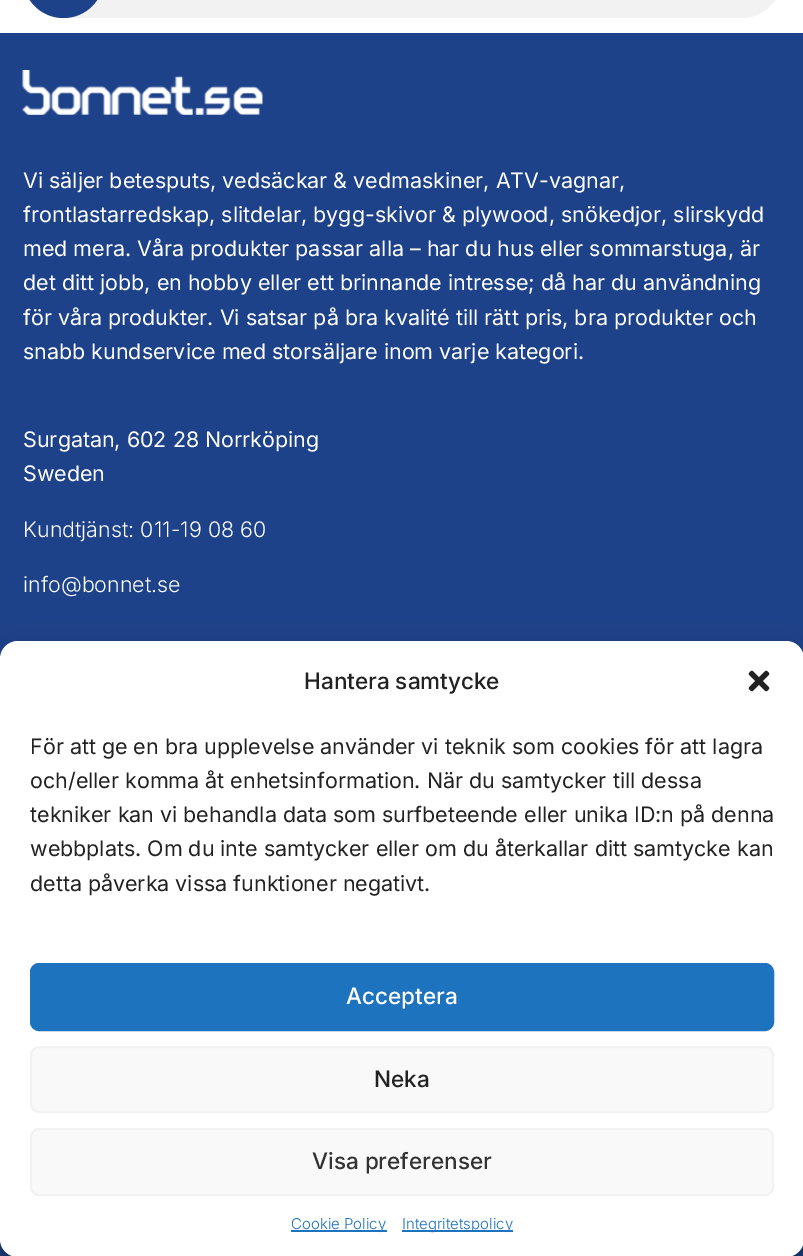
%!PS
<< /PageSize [803 1256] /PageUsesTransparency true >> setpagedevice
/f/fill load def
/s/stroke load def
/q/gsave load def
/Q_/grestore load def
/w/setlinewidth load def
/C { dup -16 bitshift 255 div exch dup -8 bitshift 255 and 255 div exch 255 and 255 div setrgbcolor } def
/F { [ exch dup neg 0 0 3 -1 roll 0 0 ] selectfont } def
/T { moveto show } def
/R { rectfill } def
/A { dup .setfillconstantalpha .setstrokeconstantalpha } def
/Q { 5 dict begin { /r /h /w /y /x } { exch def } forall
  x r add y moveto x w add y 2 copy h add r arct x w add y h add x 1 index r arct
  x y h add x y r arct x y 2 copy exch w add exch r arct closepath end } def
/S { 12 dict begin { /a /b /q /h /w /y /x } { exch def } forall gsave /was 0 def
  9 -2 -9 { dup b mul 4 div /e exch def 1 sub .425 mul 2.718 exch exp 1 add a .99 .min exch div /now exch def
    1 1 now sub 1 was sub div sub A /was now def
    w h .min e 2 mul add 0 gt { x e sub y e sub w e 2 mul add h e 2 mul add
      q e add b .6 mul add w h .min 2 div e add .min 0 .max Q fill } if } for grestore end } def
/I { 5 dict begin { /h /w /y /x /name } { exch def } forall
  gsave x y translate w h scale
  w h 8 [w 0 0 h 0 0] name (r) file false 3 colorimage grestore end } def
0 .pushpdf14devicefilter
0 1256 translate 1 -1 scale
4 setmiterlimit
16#FFFFFF C
0 0 803 1256 R
16#F2F2F2 C
23 -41 759 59 40.5 Q f
16#1E4289 C
23 -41 81 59 40.5 Q f
0 33 803 1223 R
(1.rgb) 22 70 241 45 I
/Inter-Regular 21.45 F
16#FFFFFF C
(Vi säljer betesputs, vedsäckar & vedmaskiner, ATV-vagnar,) 23 188 T
(frontlastarredskap, slitdelar, bygg-skivor & plywood, snökedjor, slirskydd) 23 222 T
(med mera. Våra produkter passar alla – har du hus eller sommarstuga, är) 23 256 T
(det ditt jobb, en hobby eller ett brinnande intresse; då har du användning) 23 290 T
(för våra produkter. Vi satsar på bra kvalité till rätt pris, bra produkter och) 23 325 T
(snabb kundservice med storsäljare inom varje kategori.) 23 359 T
(Surgatan, 602 28 Norrköping) 23 447 T
(Sweden) 23 481 T
/Inter-Light 21.45 F
(Kundtjänst: 011-19 08 60) 23 537 T
(info@bonnet.se) 23 592 T
16#000000 C
0 650 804 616 18 4.5 .23 S
0 656 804 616 18 15 .19 S
16#FFFFFF C
0 641 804 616 18 Q f
/Inter-Medium 22.5 F
16#222222 C
(Hantera samtycke) 304 689 T
(2.rgb) 748 670 22 22 I
/Inter-Regular 21.45 F
(För att ge en bra upplevelse använder vi teknik som cookies för att lagra) 30 754 T
(och/eller komma åt enhetsinformation. När du samtycker till dessa) 30 788 T
(tekniker kan vi behandla data som surfbeteende eller unika ID:n på denna) 30 822 T
(webbplats. Om du inte samtycker eller om du återkallar ditt samtycke kan) 30 856 T
(detta påverka vissa funktioner negativt.) 30 891 T
16#1E73BE C
31 964 742 66 8 Q q f Q_
2 w
s
/Inter-Medium 22.5 F
16#FFFFFF C
(Acceptera) 346 1004 T
16#F9F9F9 C
31 1047 742 65 8 Q q f Q_
16#F2F2F2 C
s
16#222222 C
(Neka) 374 1087 T
16#F9F9F9 C
31 1129 742 66 8 Q q f Q_
16#F2F2F2 C
s
16#333333 C
(Visa preferenser) 312 1169 T
16#1E73BE C
291 1230 96 2 R
/Inter-Light 15 F
(Cookie Policy) 291 1229 T
402 1230 111 2 R
(Integritetspolicy) 402 1229 T
.poppdf14devicefilter showpage
